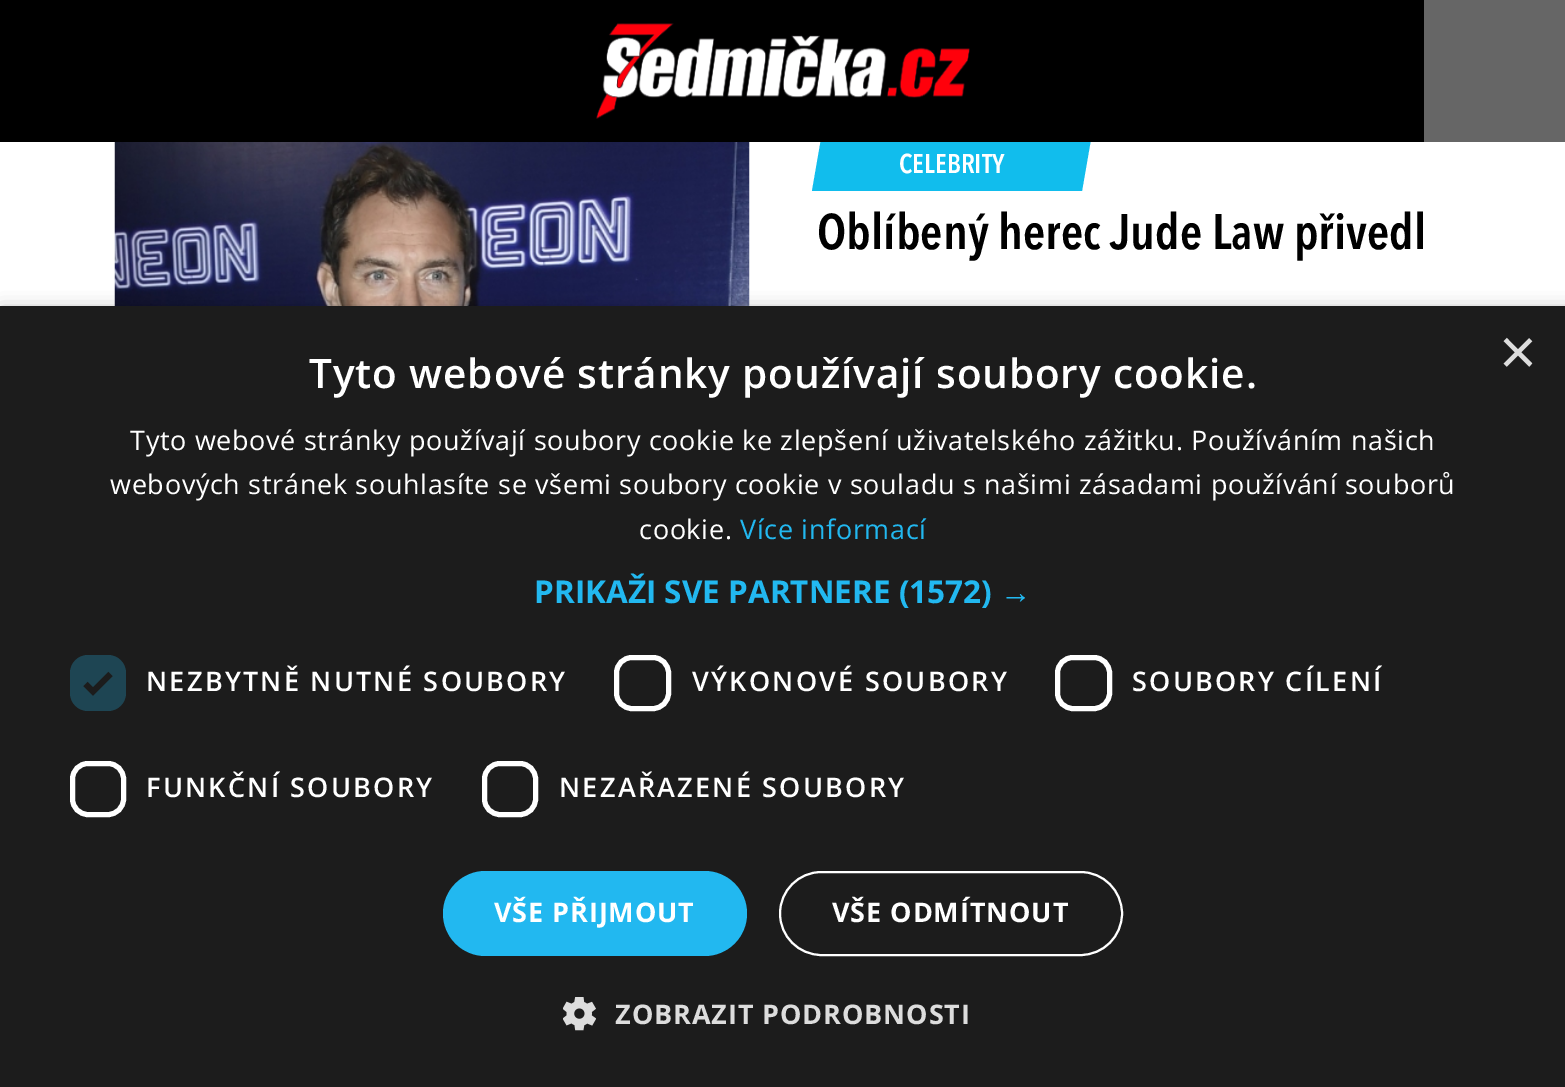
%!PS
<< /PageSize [1565 1087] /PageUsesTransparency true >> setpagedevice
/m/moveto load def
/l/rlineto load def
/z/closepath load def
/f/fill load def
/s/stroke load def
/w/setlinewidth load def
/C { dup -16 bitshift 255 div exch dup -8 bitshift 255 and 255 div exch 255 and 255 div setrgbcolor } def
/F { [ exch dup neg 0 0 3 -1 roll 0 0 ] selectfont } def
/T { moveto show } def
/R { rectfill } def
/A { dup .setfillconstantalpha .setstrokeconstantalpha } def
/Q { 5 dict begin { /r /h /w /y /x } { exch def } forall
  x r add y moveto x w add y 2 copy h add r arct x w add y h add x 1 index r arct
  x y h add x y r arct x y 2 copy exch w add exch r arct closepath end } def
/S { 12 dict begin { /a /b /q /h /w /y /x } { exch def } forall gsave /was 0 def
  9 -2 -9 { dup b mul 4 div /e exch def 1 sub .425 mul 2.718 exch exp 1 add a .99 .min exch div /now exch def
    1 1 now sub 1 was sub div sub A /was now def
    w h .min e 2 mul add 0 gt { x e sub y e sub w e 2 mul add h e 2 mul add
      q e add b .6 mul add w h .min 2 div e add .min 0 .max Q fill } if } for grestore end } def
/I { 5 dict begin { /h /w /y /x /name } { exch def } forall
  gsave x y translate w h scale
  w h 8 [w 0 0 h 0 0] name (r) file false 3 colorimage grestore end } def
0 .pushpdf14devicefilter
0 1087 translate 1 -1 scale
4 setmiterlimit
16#FFFFFF C
0 0 1565 1087 R
16#11BDED C
821 139 m 270 0 l -9 52 l -270 0 l z f
16#000000 C
0 0 1424 142 R
(1.rgb) 596 23 374 96 I
16#666666 C
1424 0 141 142 R
(2.rgb) 114 142 636 164 I
/AvenirNext-Bold 27 F
16#FFFFFF C
(CELEBRITY) 899 173 T
/AvenirNext-Bold 49.5 F
16#000000 C
(Oblíbený herec Jude Law přivedl) 817 249 T
2 311 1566 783 0 9 .35 S
16#1C1C1C C
0 306 1565 781 R
/LiberationSans-Regular 65 F
16#DDDDDD C
(×) 1499 374 T
/OpenSans-SemiBold 40.5 F
16#FFFFFF C
309 388 m .9 0 (Tyto webové stránky používají soubory cookie.) ashow
/OpenSans-Regular 27 F
130 450 m .67 0 (Tyto webové stránky používají soubory cookie ke zlepšení uživatelského zážitku. Používáním našich) ashow
110 494 m .67 0 (webových stránek souhlasíte se všemi soubory cookie v souladu s našimi zásadami používání souborů) ashow
639 539 m .67 0 (cookie.) ashow
16#22B8F0 C
740 539 m .67 0 (Více informací) ashow
/OpenSans-Bold 31.5 F
(PRIKAŽI SVE PARTNERE \(1572\)) 534 603 T
/LiberationSans-Bold 31.5 F
(→) 1000 603 T
16#1E4553 C
70 655 56 56 18 Q f
16#1C1C1C C
5.9 w
85.5 684 m 7.5 7.5 l 17.5 -17.5 l s
/OpenSans-SemiBold 27 F
16#FFFFFF C
146 691 m 2.25 0 (NEZBYTNĚ NUTNÉ SOUBORY) ashow
5 w
616.5 657.5 52 51 15.5 Q s
692 691 m 2.25 0 (VÝKONOVÉ SOUBORY) ashow
1057.5 657.5 52 51 15.5 Q s
1132 691 m 2.25 0 (SOUBORY CÍLENÍ) ashow
72.5 763.5 51 51 15.5 Q s
146 797 m 2.25 0 (FUNKČNÍ SOUBORY) ashow
484.5 763.5 51 51 15.5 Q s
559 797 m 2.25 0 (NEZAŘAZENÉ SOUBORY) ashow
16#22B8F0 C
443 871 304 85 42.5 Q f
/OpenSans-Bold 27 F
16#FFFFFF C
494 922 m .9 0 (VŠE PŘIJMOUT) ashow
2 w
780 872 342 83 41.5 Q s
832 922 m .9 0 (VŠE ODMÍTNOUT) ashow
(3.rgb) 563 997 33 34 I
16#DDDDDD C
615 1024 m .9 0 (ZOBRAZIT PODROBNOSTI) ashow
.poppdf14devicefilter showpage
